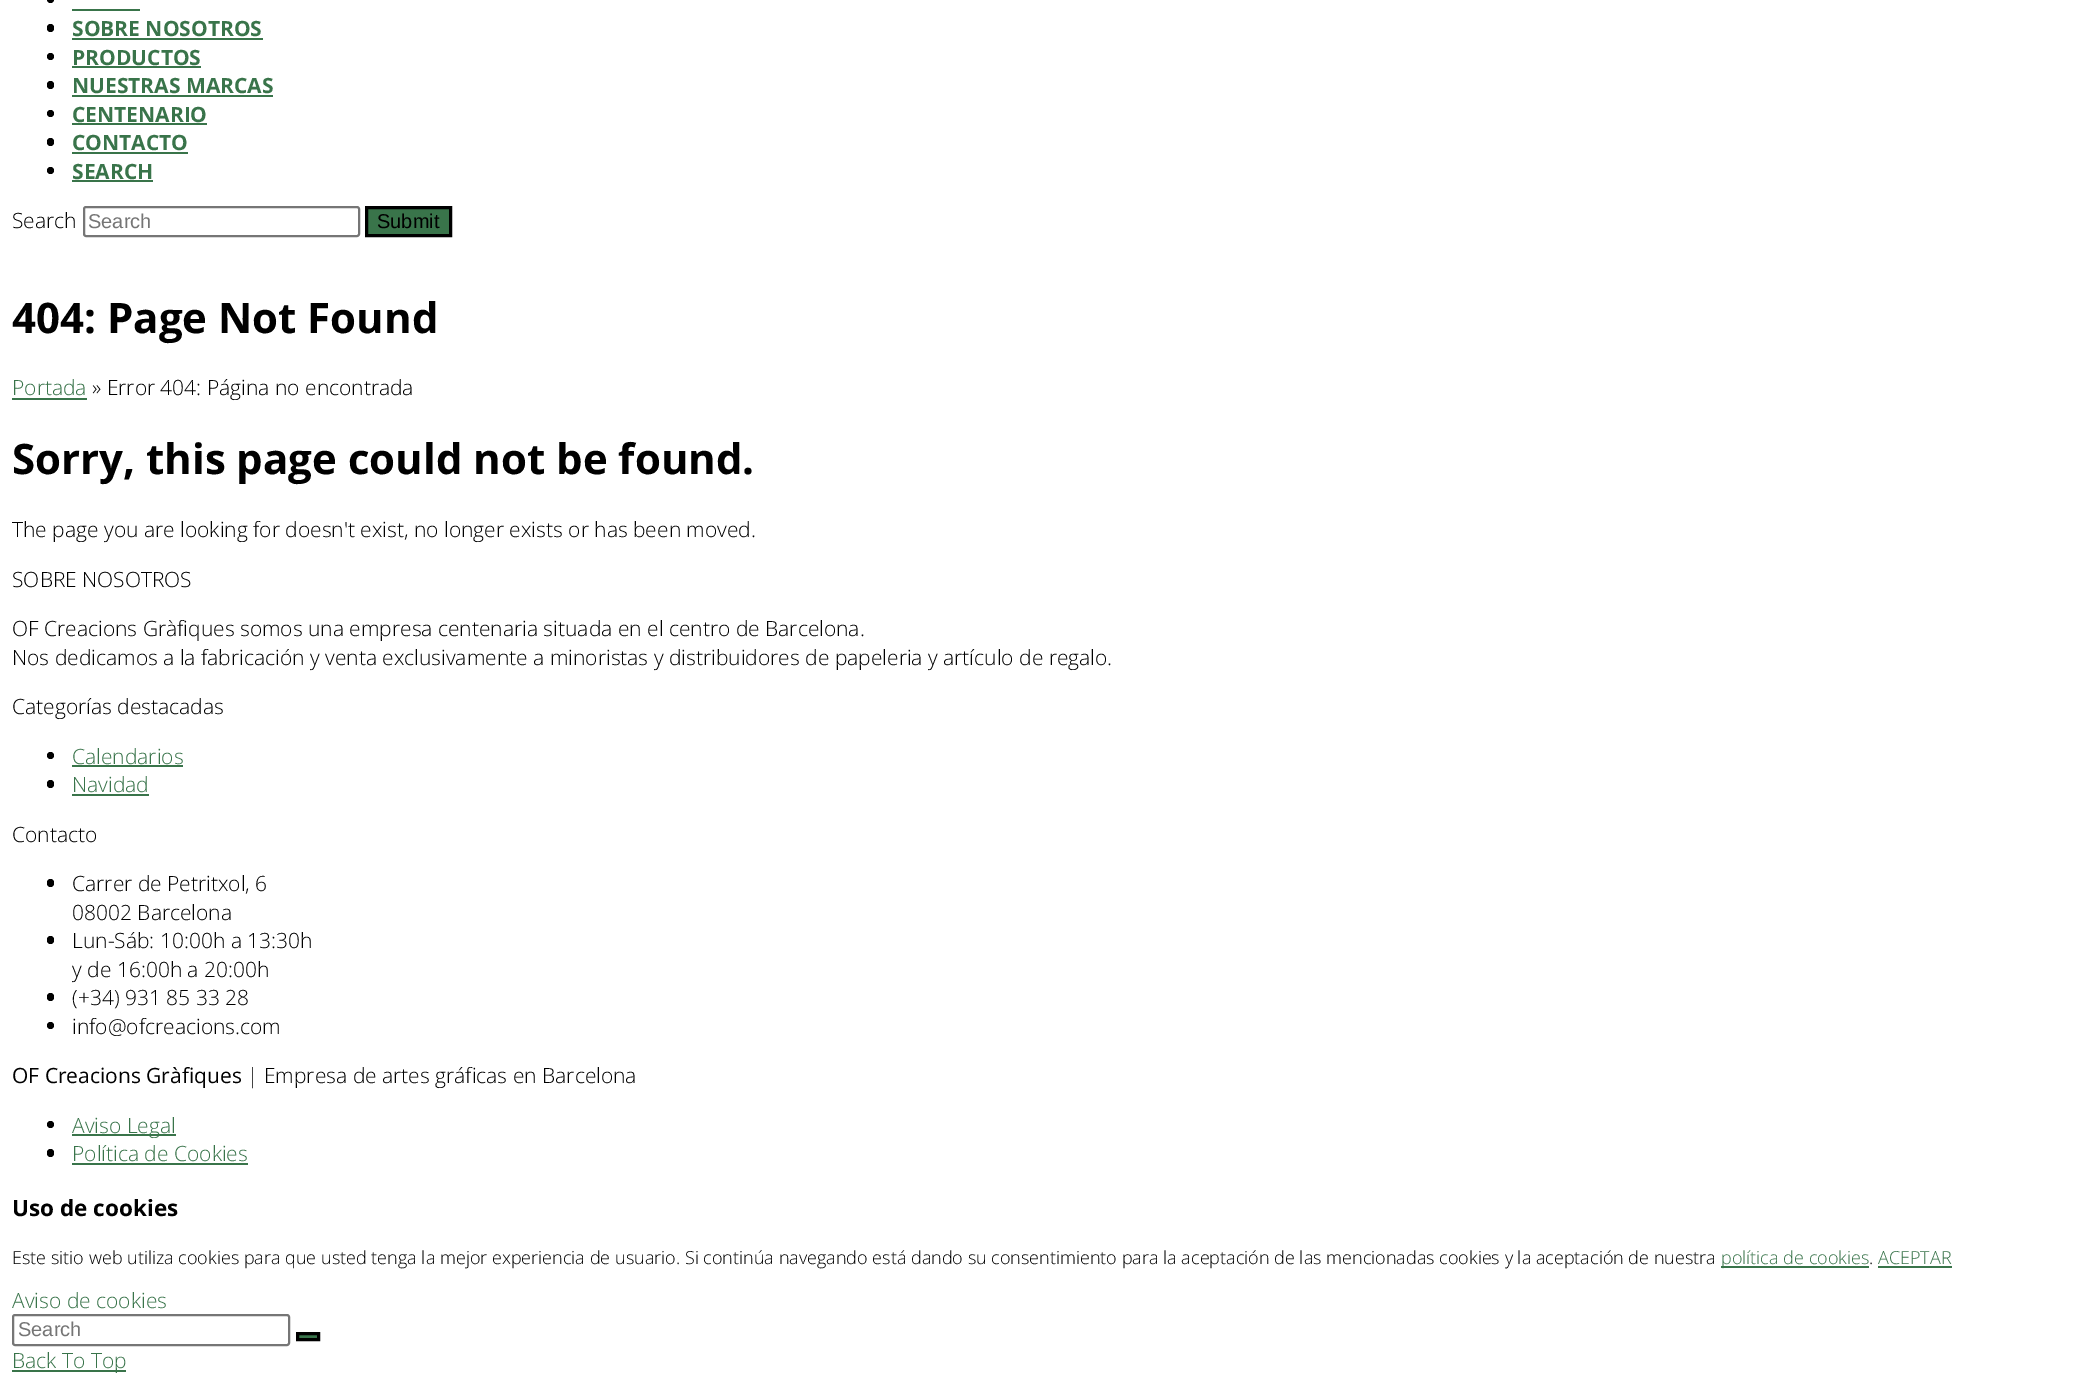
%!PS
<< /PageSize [2095 1374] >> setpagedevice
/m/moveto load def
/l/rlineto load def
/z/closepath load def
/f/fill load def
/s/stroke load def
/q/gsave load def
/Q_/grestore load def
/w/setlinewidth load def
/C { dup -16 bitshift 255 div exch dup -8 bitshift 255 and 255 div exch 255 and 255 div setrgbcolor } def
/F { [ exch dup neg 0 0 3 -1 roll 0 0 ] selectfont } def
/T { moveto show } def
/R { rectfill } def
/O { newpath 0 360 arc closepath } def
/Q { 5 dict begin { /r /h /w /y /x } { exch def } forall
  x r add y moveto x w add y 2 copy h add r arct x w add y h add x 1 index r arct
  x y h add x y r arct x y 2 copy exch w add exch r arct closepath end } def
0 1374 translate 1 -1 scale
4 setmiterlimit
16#FFFFFF C
0 0 2095 1374 R
16#000000 C
50.5 -.5 3.5 O f
16#39744A C
72 9 68 2 R
16#000000 C
47 24 7 8 3.5 Q f
/OpenSans-Bold 21 F
16#39744A C
(SOBRE NOSOTROS) 72 36 T
72 38 191 2 R
16#000000 C
50.5 56.5 3.5 O f
16#39744A C
(PRODUCTOS) 72 65 T
72 66 129 2 R
16#000000 C
47 81 7 8 3.5 Q f
16#39744A C
(NUESTRAS MARCAS) 72 93 T
72 95 201 2 R
16#000000 C
50.5 113.5 3.5 O f
16#39744A C
(CENTENARIO) 72 122 T
72 123 135 2 R
16#000000 C
47 138 7 8 3.5 Q f
16#39744A C
(CONTACTO) 72 150 T
72 152 116 2 R
16#000000 C
50.5 170.5 3.5 O f
16#39744A C
(SEARCH) 72 179 T
72 180 81 2 R
/OpenSans-Light 21 F
16#000000 C
(Search) 12 228 T
16#767676 C
2 w
84 207 275 29 2 Q s
/LiberationSans-Regular 20 F
16#757575 C
(Search) 88 228 T
16#39744A C
366.5 207.5 m 84 0 l 0 28 l -84 0 l z q f Q_
16#000000 C
3 w
s
(Submit) 377 228 T
/OpenSans-Bold 42 F
(404: Page Not Found) 12 333 T
/OpenSans-Light 21 F
16#39744A C
(Portada) 12 395 T
12 398 75 2 R
16#000000 C
(» Error 404: Página no encontrada) 92 395 T
/OpenSans-Bold 42 F
(Sorry, this page could not be found.) 12 474 T
/OpenSans-Light 21 F
(The page you are looking for doesn't exist, no longer exists or has been moved.) 12 537 T
(SOBRE NOSOTROS) 12 587 T
(OF Creacions Gràfiques somos una empresa centenaria situada en el centro de Barcelona.) 12 636 T
(Nos dedicamos a la fabricación y venta exclusivamente a minoristas y distribuidores de papeleria y artículo de regalo.) 12 665 T
(Categorías destacadas) 12 714 T
50.5 755.5 3.5 O f
16#39744A C
(Calendarios) 72 764 T
72 765 111 2 R
16#000000 C
47 780 7 8 3.5 Q f
16#39744A C
(Navidad) 72 792 T
72 794 77 2 R
16#000000 C
(Contacto) 12 842 T
47 879 7 8 3.5 Q f
(Carrer de Petritxol, 6) 72 891 T
(08002 Barcelona) 72 920 T
47 936 7 8 3.5 Q f
(Lun-Sáb: 10:00h a 13:30h) 72 948 T
(y de 16:00h a 20:00h) 72 977 T
47 993 7 8 3.5 Q f
(\(+34\) 931 85 33 28) 72 1005 T
50.5 1025.5 3.5 O f
(info@ofcreacions.com) 72 1034 T
/OpenSans-Regular 21 F
(OF Creacions Gràfiques) 12 1083 T
/OpenSans-Light 21 F
(| Empresa de artes gráficas en Barcelona) 247 1083 T
50.5 1124.5 3.5 O f
16#39744A C
72 1134 104 2 R
(Aviso Legal) 72 1133 T
16#000000 C
47 1149 7 8 3.5 Q f
16#39744A C
(Política de Cookies) 72 1161 T
72 1163 176 2 R
/OpenSans-Bold 22.5 F
16#000000 C
(Uso de cookies) 12 1216 T
/OpenSans-Light 18 F
(Este sitio web utiliza cookies para que usted tenga la mejor experiencia de usuario. Si continúa navegando está dando su consentimiento para la aceptación de las mencionadas cookies y la aceptación de nuestra) 12 1264 T
16#39744A C
1721 1266 148 2 R
(política de cookies) 1721 1264 T
16#000000 C
(.) 1869 1264 T
16#39744A C
(ACEPTAR) 1878 1264 T
1878 1266 74 2 R
/OpenSans-Light 21 F
(Aviso de cookies) 12 1308 T
16#767676 C
2 w
13 1315 276 30 2 Q s
/LiberationSans-Regular 20 F
16#757575 C
(Search) 18 1336 T
16#39744A C
297.5 1333.5 m 21 0 l 0 6 l -21 0 l z q f Q_
16#000000 C
3 w
s
16#39744A C
12 1370 114 2 R
/OpenSans-Light 21 F
(Back To Top) 12 1368 T
showpage
